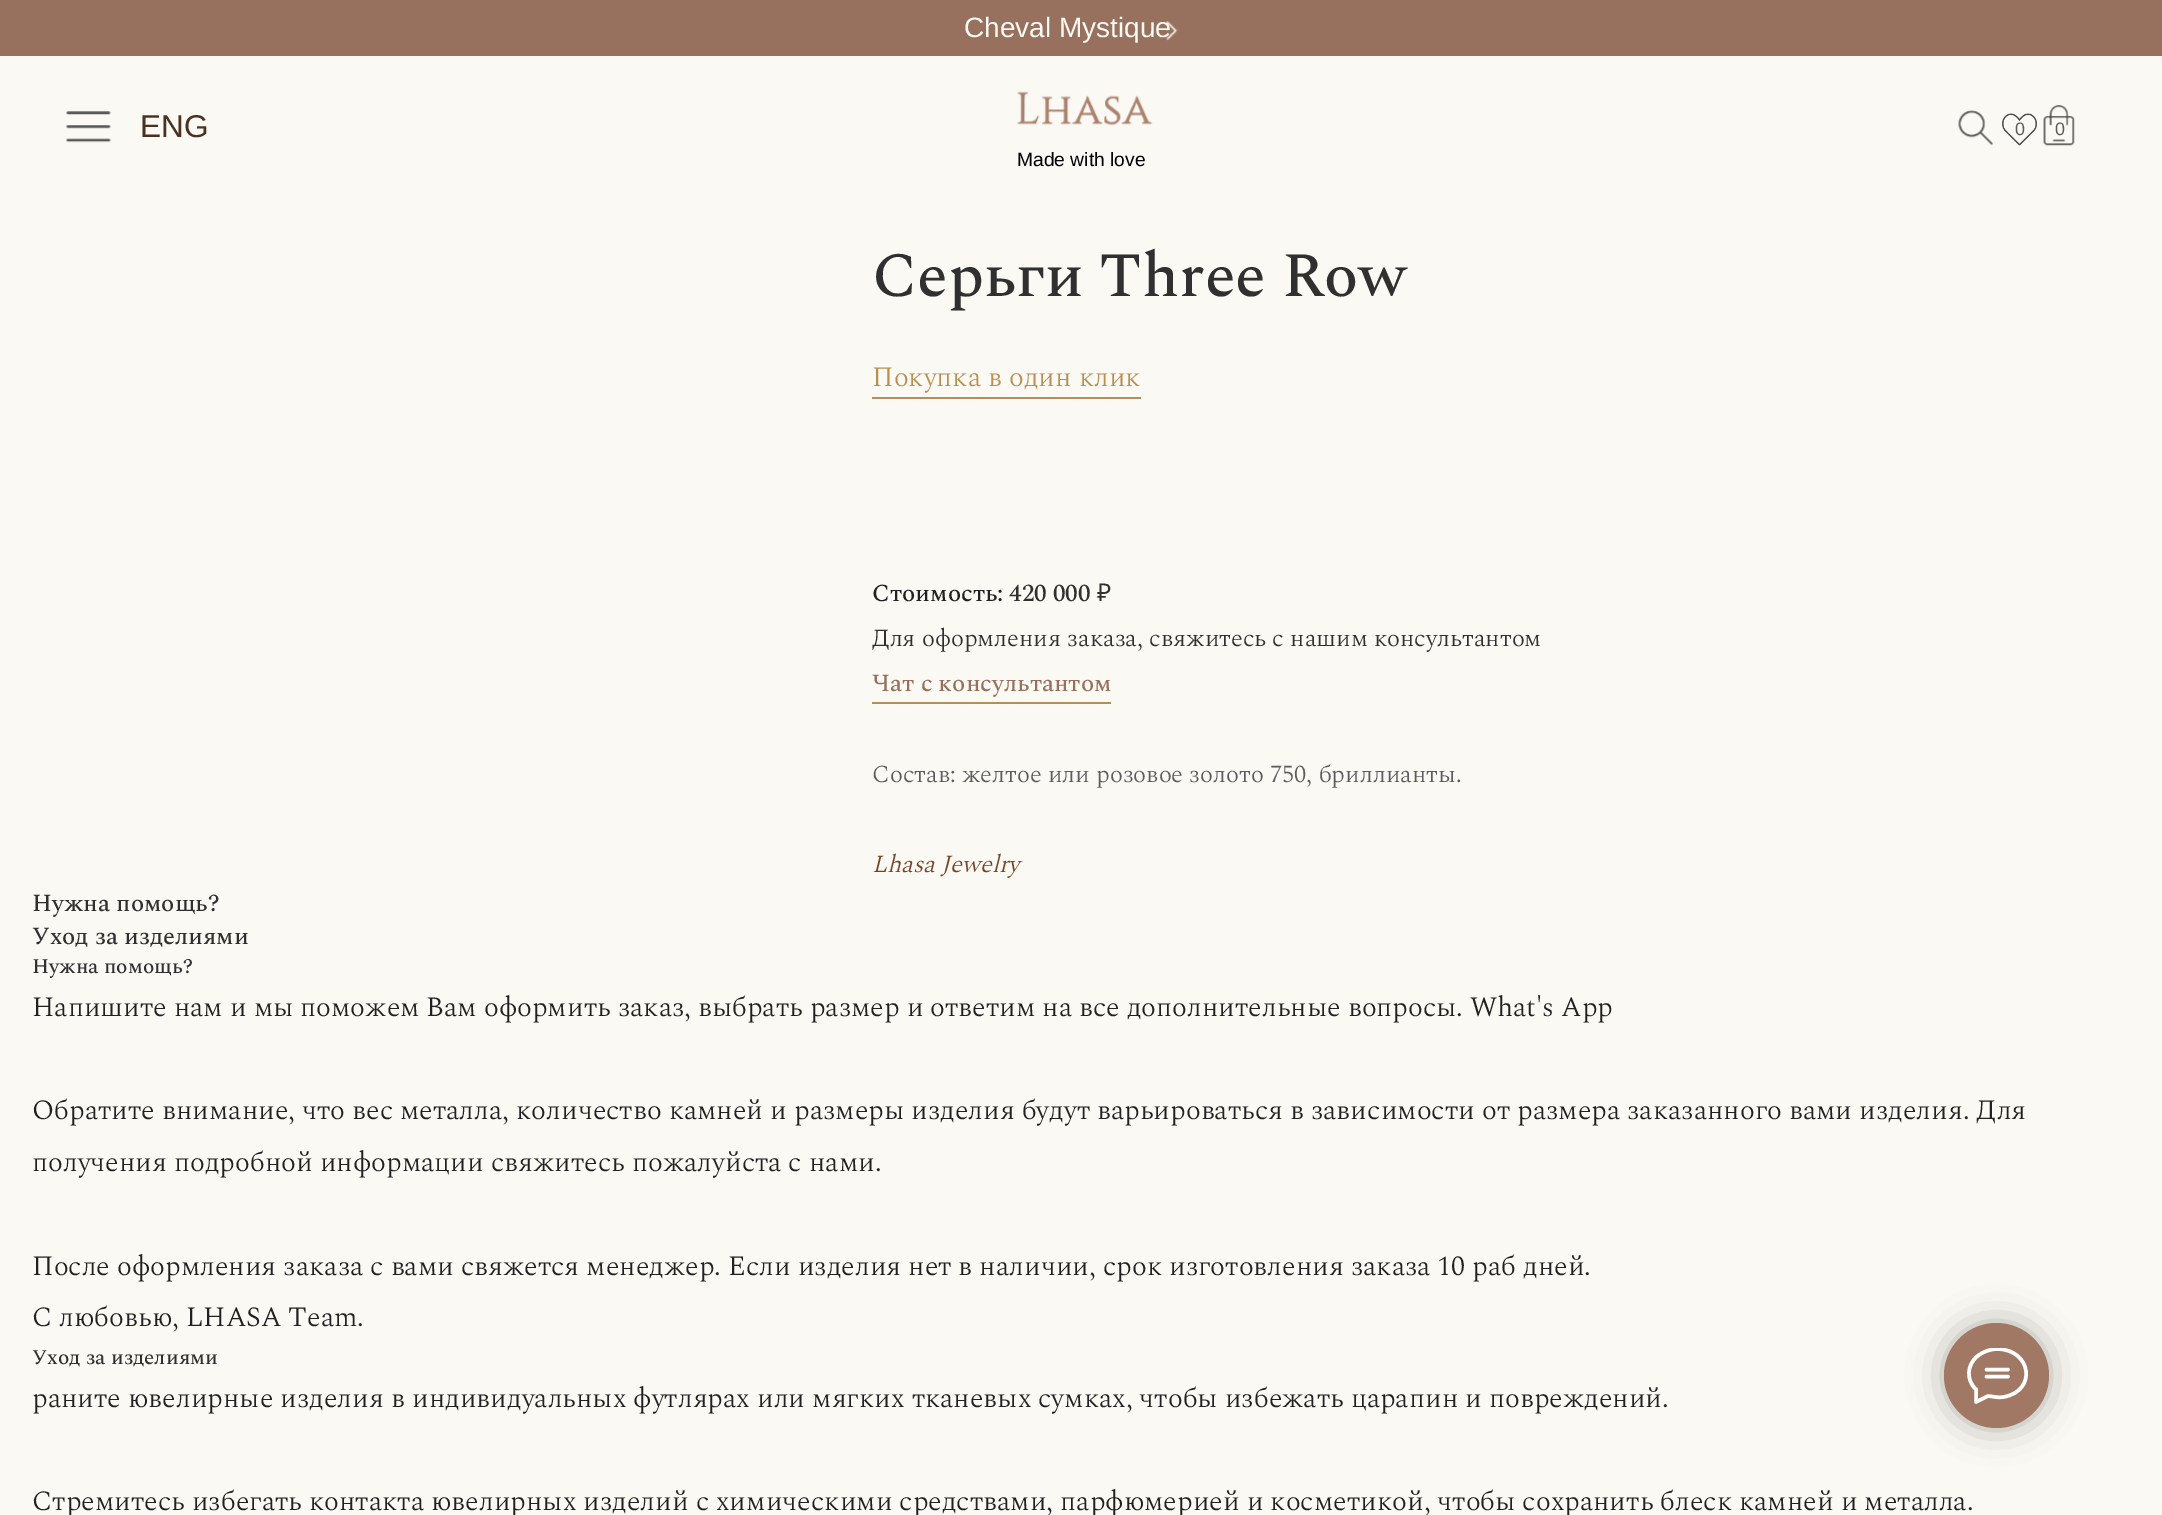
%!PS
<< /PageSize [2162 1515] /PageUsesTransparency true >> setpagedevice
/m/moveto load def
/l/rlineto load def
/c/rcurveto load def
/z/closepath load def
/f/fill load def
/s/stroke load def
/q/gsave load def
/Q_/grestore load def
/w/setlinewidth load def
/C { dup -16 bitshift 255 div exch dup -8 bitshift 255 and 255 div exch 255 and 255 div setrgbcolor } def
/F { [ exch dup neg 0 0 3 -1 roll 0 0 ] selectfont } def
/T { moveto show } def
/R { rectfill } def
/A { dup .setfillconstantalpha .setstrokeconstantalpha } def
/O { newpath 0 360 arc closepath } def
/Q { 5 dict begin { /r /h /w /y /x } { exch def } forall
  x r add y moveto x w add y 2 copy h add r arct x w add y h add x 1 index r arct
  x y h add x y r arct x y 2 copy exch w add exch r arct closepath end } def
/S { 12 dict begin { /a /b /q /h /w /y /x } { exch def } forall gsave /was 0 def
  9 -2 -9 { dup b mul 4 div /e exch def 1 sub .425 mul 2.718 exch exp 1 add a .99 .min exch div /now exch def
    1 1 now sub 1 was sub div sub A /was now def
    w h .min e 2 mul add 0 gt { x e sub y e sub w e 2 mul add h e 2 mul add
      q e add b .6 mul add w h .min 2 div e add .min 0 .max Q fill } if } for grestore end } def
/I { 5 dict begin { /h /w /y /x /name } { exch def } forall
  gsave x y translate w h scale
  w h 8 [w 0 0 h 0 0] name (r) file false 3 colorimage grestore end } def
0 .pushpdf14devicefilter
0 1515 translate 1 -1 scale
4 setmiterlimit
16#FAF9F4 C
0 0 2162 1515 R
16#97715D C
0 0 2162 56 R
/LiberationSans-Regular 28 F
16#FAF9F4 C
(Cheval Mystique) 964 37 T
(1.rgb) 1166 21 12 20 I
(2.rgb) 66 111 45 32 I
/LiberationSans-Regular 31.5 F
16#4B3122 C
(ENG) 140 137 T
(3.rgb) 1017 91 136 35 I
(4.rgb) 1958 110 35 36 I
(5.rgb) 2002 113 35 33 I
(6.rgb) 2043 105 32 41 I
/LiberationSans-Regular 18 F
16#5C5C5C C
(0) 2015 135 T
(0) 2055 135 T
/LiberationSans-Regular 19.25 F
16#000000 C
(Made with love) 1017 166 T
1944 1323 105 105 52.5 17.5 .3 S
16#A07864 C
1996.5 1375.5 52.5 O f
q
1967 1348 61 56 rectclip
16#FFFFFF C
3.5 w
1 setlinecap
1 setlinejoin
1986.5 1369.5 m 21.5 0 l 1986.5 1376.5 m 21.5 0 l 1975.5 1389 m -9.5 -9.5 -8.5 -24 1.5 -32.5 c 6 -5 13.5 -7.5 20.5 -7.5 c 34 .5 40 42 6 48 c -6.5 1 -9.5 -.5 -15.5 -1 c -12 6 l 0 -13 l z s
Q_
/Spectral-Medium 63 F
16#303030 C
(Серьги Three Row) 872 296 T
/Spectral-Light 28 F
16#B98F51 C
(Покупка в один клик) 872 386 T
872 397 269 2 R
/Spectral-Medium 24.5 F
16#212121 C
(Стоимость:) 872 601 T
16#303030 C
(420 000) 1009 601 T
/NotoSans-Regular 24.5 F
(₽) 1097 601 T
/Spectral-Light 24.5 F
(Для оформления заказа, свяжитесь с нашим консультантом) 872 646 T
/Spectral-Medium 24.5 F
16#97715D C
(Чат с консультантом) 872 691 T
16#B98F51 C
872 702 239 2 R
/Spectral-Light 24.5 F
16#5C5C5C C
(Состав: желтое или розовое золото 750, бриллианты.) 872 782 T
/Spectral-LightItalic 24.5 F
16#794222 C
(Lhasa Jewelry) 872 872 T
/Spectral-Medium 24.5 F
16#303030 C
(Нужна помощь?) 32 911 T
(Уход за изделиями) 32 944 T
/Spectral-Medium 21 F
(Нужна помощь?) 32 973 T
/Spectral-Light 28 F
16#212121 C
(Напишите нам и мы поможем Вам оформить заказ, выбрать размер и ответим на все дополнительные вопросы. What's App) 32 1016 T
(Обратите внимание, что вес металла, количество камней и размеры изделия будут варьироваться в зависимости от размера заказанного вами изделия. Для) 32 1119 T
(получения подробной информации свяжитесь пожалуйста с нами.) 32 1171 T
(После оформления заказа с вами свяжется менеджер. Если изделия нет в наличии, срок изготовления заказа 10 раб дней.) 32 1275 T
(С любовью, LHASA Team.) 32 1326 T
/Spectral-Medium 21 F
16#303030 C
(Уход за изделиями) 32 1364 T
/Spectral-Light 28 F
16#212121 C
(раните ювелирные изделия в индивидуальных футлярах или мягких тканевых сумках, чтобы избежать царапин и повреждений.) 32 1407 T
(Стремитесь избегать контакта ювелирных изделий с химическими средствами, парфюмерией и косметикой, чтобы сохранить блеск камней и металла.) 32 1510 T
.poppdf14devicefilter showpage
